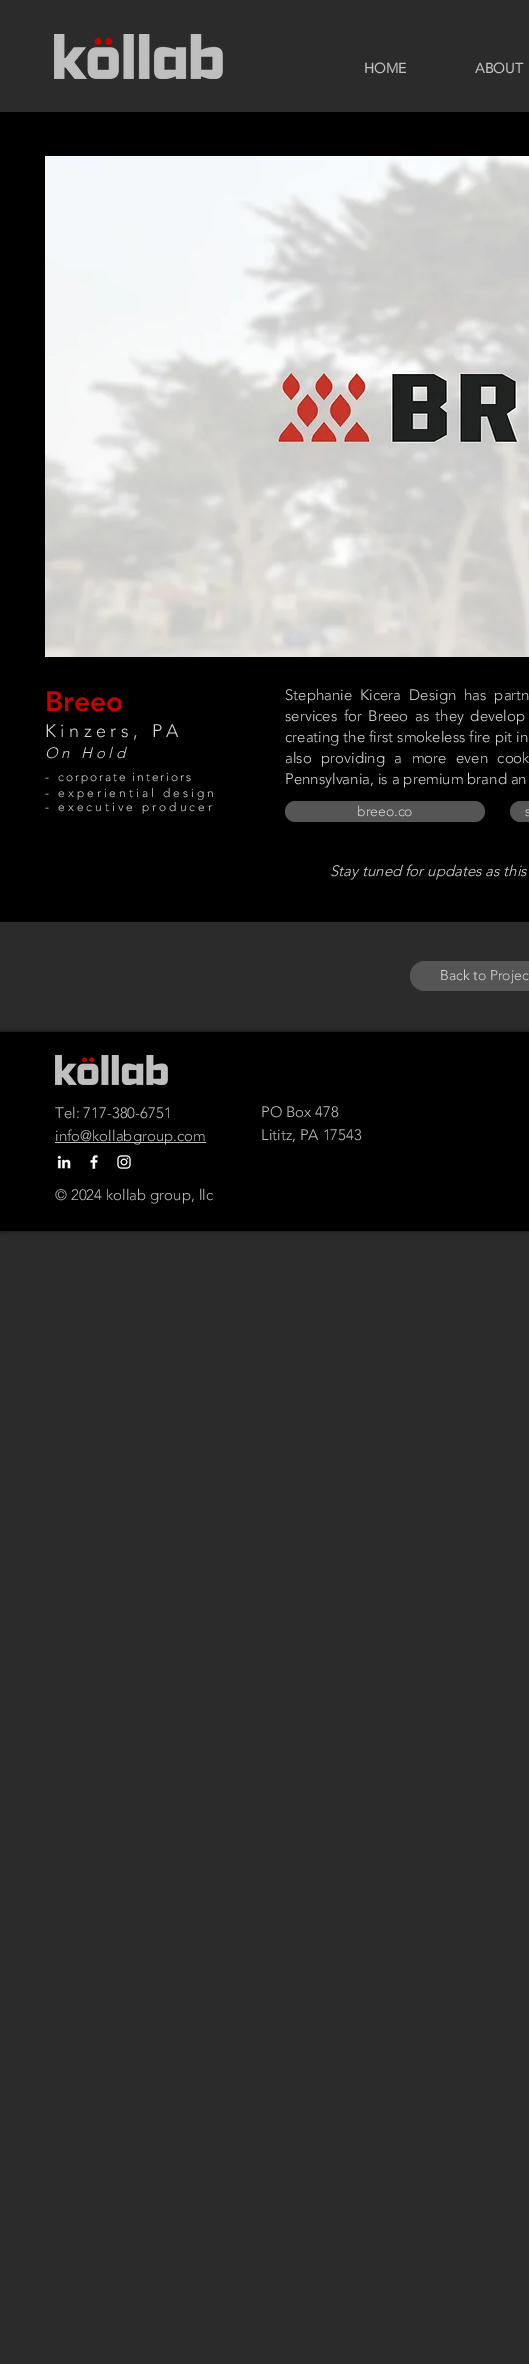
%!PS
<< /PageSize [529 2364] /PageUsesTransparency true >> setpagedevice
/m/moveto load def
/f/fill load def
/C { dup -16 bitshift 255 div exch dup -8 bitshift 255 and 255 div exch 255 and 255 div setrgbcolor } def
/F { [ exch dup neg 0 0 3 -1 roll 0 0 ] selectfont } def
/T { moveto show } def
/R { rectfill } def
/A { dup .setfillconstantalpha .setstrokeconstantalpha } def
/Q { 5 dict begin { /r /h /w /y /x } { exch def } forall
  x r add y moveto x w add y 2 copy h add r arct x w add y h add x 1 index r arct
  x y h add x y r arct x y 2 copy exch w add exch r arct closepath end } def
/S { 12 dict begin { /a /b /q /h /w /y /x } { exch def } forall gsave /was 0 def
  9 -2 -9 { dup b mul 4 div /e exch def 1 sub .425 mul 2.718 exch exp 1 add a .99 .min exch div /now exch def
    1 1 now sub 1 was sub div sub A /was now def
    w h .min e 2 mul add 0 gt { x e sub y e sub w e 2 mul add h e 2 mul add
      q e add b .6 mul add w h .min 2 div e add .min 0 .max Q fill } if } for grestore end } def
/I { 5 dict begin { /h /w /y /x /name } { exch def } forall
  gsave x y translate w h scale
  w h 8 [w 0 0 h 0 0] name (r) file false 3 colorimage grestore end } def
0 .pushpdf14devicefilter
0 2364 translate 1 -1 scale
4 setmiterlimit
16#2B2B2B C
0 0 529 2364 R
(1.rgb) 54 34 169 45 I
/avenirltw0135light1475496-Bold 14 F
16#BFBFBF C
(HOME) 364 73 T
(ABOUT) 475 73 T
16#000000 C
0 112 529 810 R
(2.rgb) 45 156 484 501 I
/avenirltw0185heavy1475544-Black 28 F
16#C80000 C
(Breeo) 45 711 T
/avenirltw0135light1475496-Light 15 F
16#D5D5D5 C
285 700 m 4 0 32 (Stephanie Kicera Design has partn) widthshow
285 721 m 2.5 0 32 (services for Breeo as they develop) widthshow
(creating the first smokeless fire pit in) 285 742 T
285 763 m 5.5 0 32 (also providing a more even cook) widthshow
(Pennsylvania, is a premium brand an) 285 784 T
/avenirltw0135light1475496-Light 18 F
45 737 m 4.5 0 (Kinzers, PA) ashow
/avenirltw0135light1475496-LightItalic 15 F
45 758 m 3.75 0 (On Hold) ashow
/avenirltw0135light1475496-Light 12 F
45 781 m 3 0 (-) ashow
58 781 m 1.9 0 (corporate interiors) ashow
45 797 m 3 0 (- experiential design) ashow
45 811 m 3 0 (- executive producer) ashow
16#555555 C
285 801 200 21 10.5 Q f
/avenirltw0135light1475496-Light 14 F
16#D5D5D5 C
(breeo.co) 357 816 T
16#555555 C
510 801 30 21 10.5 Q f
16#D5D5D5 C
(s) 525 816 T
/avenirltw0135light1475496-LightItalic 15 F
(Stay tuned for updates as this) 330 876 T
16#555555 C
410 961 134 30 15 Q f
/avenirltw0135light1475496-Light 14 F
16#D5D5D5 C
(Back to Projec) 440 980 T
16#000000 C
0 1032 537 199 0 2.5 .7 S
0 1032 529 199 R
(3.rgb) 55 1055 113 30 I
/avenirltw0135light1475496-Light 15 F
16#BFBFBF C
(Tel: 717-380-6751) 55 1118 T
55 1142 151 1 R
(info@kollabgroup.com) 55 1141 T
(PO Box 478) 261 1117 T
(Lititz, PA 17543) 261 1140 T
(4.rgb) 57 1155 14 14 I
(5.rgb) 90 1155 8 14 I
(6.rgb) 117 1155 14 14 I
(© 2024 kollab group, llc) 55 1200 T
.poppdf14devicefilter showpage
